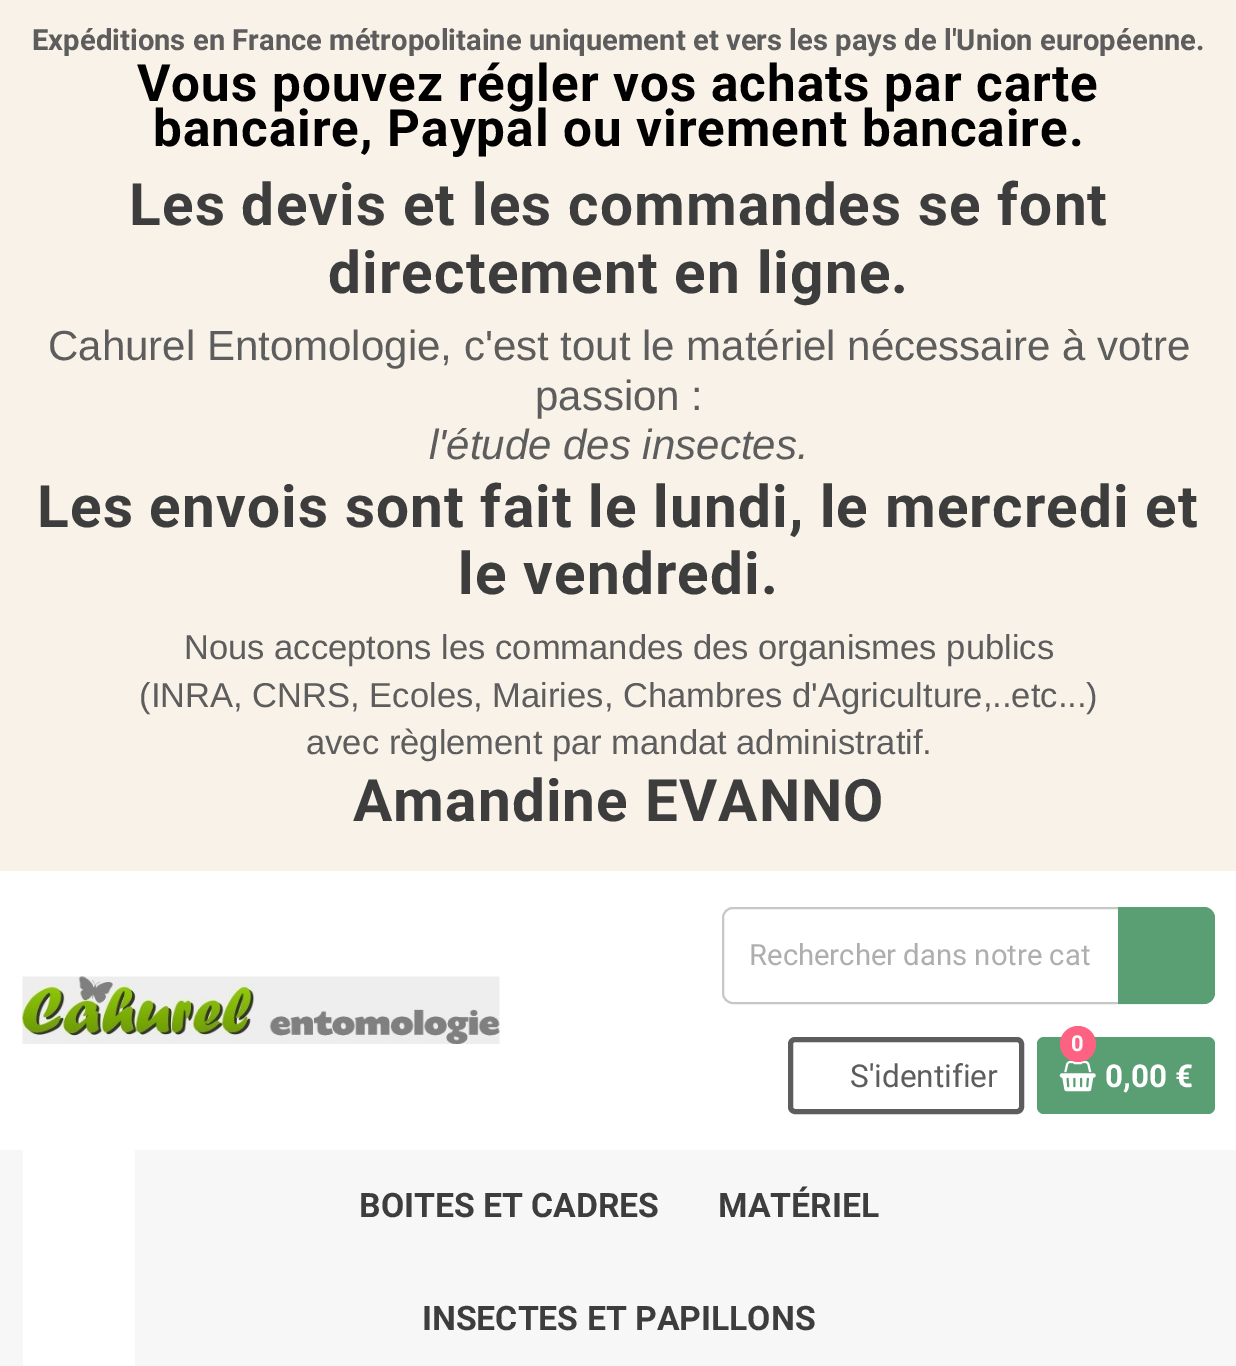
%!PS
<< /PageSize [1236 1366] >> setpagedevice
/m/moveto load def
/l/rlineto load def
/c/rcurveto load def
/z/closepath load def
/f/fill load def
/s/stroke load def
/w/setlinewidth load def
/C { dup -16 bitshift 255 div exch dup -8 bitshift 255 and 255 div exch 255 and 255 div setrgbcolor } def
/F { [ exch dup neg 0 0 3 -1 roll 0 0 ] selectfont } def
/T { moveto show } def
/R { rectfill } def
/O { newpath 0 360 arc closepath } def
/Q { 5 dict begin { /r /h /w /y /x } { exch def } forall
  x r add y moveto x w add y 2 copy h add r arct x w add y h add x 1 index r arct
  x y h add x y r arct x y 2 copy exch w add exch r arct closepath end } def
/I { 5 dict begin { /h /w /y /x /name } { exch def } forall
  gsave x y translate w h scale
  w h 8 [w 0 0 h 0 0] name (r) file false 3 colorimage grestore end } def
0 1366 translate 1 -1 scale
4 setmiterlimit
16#FFFFFF C
0 0 1236 1366 R
16#F9F2E8 C
0 0 1236 871 R
/Roboto-Bold 29.25 F
16#5D5D5D C
(Expéditions en France métropolitaine uniquement et vers les pays de l'Union européenne.) 32 50 T
/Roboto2-Bold 51.2 F
16#000000 C
137 101 m 1 0 (Vous pouvez régler vos achats par carte) ashow
153 146 m 1 0 (bancaire, Paypal ou virement bancaire.) ashow
/Roboto2-Bold 58.5 F
16#3D3D3D C
129 225 m 1.15 0 (Les devis et les commandes se font) ashow
328 293 m 1.15 0 (directement en ligne.) ashow
/LiberationSans-Regular 42 F
16#5D5D5D C
(Cahurel Entomologie, c'est tout le matériel nécessaire à votre) 48 360 T
(passion :) 535 410 T
/LiberationSans-Italic 42 F
(l'étude des insectes.) 429 459 T
/Roboto2-Bold 58.5 F
16#3D3D3D C
37 527 m 1.15 0 (Les envois sont fait le lundi, le mercredi et) ashow
458 594 m 1.15 0 (le vendredi.) ashow
/LiberationSans-Regular 34.55 F
16#5D5D5D C
(Nous acceptons les commandes des organismes publics) 184 659 T
(\(INRA, CNRS, Ecoles, Mairies, Chambres d'Agriculture,..etc...\)) 139 707 T
(avec règlement par mandat administratif.) 306 754 T
/Roboto2-Bold 58.5 F
16#3D3D3D C
353 821 m 1.15 0 (Amandine EVANNO) ashow
(1.rgb) 22 976 478 68 I
16#C7C7C7 C
2 w
723 908 489 95 10 Q s
/Roboto-Regular 29.25 F
16#AEAEAE C
(Rechercher dans notre cat) 749 965 T
16#5A9E74 C
1118 907 m 86 0 l 6 0 11 5 11 11 c 0 75 l 0 6 -5 11 -11 11 c -86 0 l z f
16#5D5D5D C
5 w
790.5 1039.5 231 72 4.5 Q s
/Roboto-Regular 31.5 F
(S'identifier) 850 1087 T
16#5A9E74 C
1037 1037 178 77 7 Q f
(2.rgb) 1059 1060 37 32 I
16#FD6282 C
1078 1044 18 O f
/Roboto-Bold 22 F
16#FFFFFF C
(0) 1071 1051 T
/Roboto-Bold 31.5 F
(0,00 €) 1105 1087 T
16#F7F7F7 C
0 1150 1236 216 R
16#FFFFFF C
23 1150 112 216 R
/Roboto2-Bold 33.75 F
16#3D3D3D C
(BOITES ET CADRES) 359 1217 T
(MATÉRIEL) 718 1217 T
(INSECTES ET PAPILLONS) 422 1330 T
showpage
